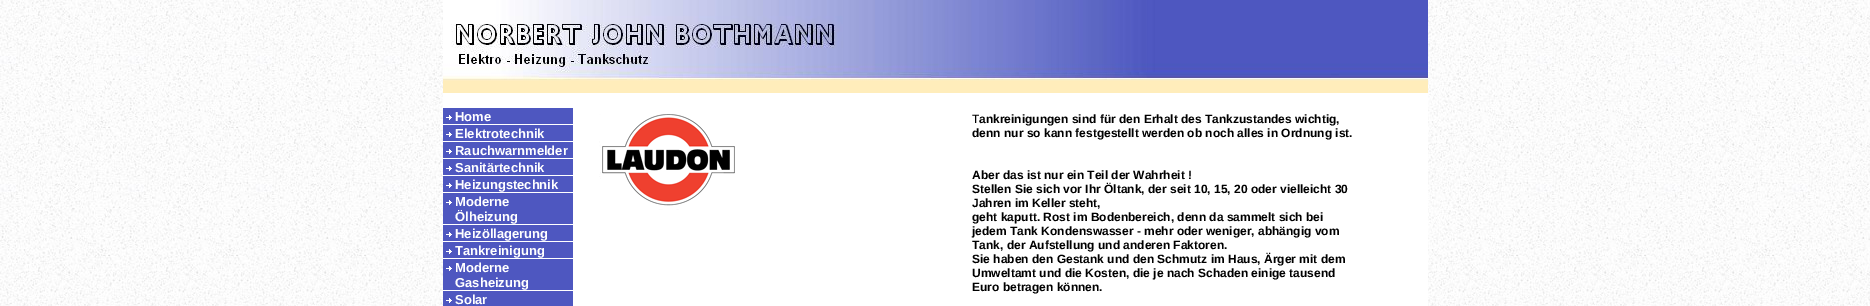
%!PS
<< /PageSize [1870 306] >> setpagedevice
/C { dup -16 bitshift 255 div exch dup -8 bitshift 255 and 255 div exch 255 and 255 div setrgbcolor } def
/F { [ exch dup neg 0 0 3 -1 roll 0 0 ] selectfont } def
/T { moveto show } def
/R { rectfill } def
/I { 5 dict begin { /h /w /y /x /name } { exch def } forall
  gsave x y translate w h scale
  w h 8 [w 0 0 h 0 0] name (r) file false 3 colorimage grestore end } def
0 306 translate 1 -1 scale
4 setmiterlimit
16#FFFFFF C
0 0 1870 306 R
(1.rgb) 0 0 1870 306 I
443 93 985 213 R
(2.rgb) 443 0 985 93 I
16#4E57C0 C
443 108 130 16 R
(3.rgb) 446 115 6 5 I
/LiberationSans-Bold 13 F
16#FFFFFF C
(Home) 455 121 T
16#4E57C0 C
443 125 130 16 R
(3.rgb) 446 132 6 5 I
16#FFFFFF C
(Elektrotechnik) 455 138 T
16#4E57C0 C
443 142 130 16 R
(3.rgb) 446 149 6 5 I
16#FFFFFF C
(Rauchwarnmelder) 455 155 T
16#4E57C0 C
443 159 130 16 R
(3.rgb) 446 166 6 5 I
16#FFFFFF C
(Sanitärtechnik) 455 172 T
16#4E57C0 C
443 176 130 16 R
(3.rgb) 446 183 6 5 I
16#FFFFFF C
(Heizungstechnik) 455 189 T
16#4E57C0 C
443 193 130 31 R
(3.rgb) 446 200 6 5 I
16#FFFFFF C
(Moderne) 455 206 T
(Ölheizung) 455 221 T
16#4E57C0 C
443 225 130 16 R
(3.rgb) 446 232 6 5 I
16#FFFFFF C
(Heizöllagerung) 455 238 T
16#4E57C0 C
443 242 130 16 R
(3.rgb) 446 249 6 5 I
16#FFFFFF C
(Tankreinigung) 455 255 T
16#4E57C0 C
443 259 130 31 R
(3.rgb) 446 266 6 5 I
16#FFFFFF C
(Moderne) 455 272 T
(Gasheizung) 455 287 T
16#4E57C0 C
443 291 130 15 R
(3.rgb) 446 298 6 5 I
16#FFFFFF C
(Solar) 455 304 T
(4.rgb) 599 114 136 96 I
/LiberationSans-Regular 12 F
16#000000 C
(T) 972 123 T
/LiberationSans-Bold 12 F
(ankreinigungen sind für den Erhalt des Tankzustandes wichtig,) 979 123 T
(denn nur so kann festgestellt werden ob noch alles in Ordnung ist.) 972 137 T
(Aber das ist nur ein Teil der Wahrheit !) 972 179 T
(Stellen Sie sich vor Ihr Öltank, der seit 10, 15, 20 oder vielleicht 30) 972 193 T
(Jahren im Keller steht,) 972 207 T
(geht kaputt. Rost im Bodenbereich, denn da sammelt sich bei) 972 221 T
(jedem Tank Kondenswasser - mehr oder weniger, abhängig vom) 972 235 T
(Tank, der Aufstellung und anderen Faktoren.) 972 249 T
(Sie haben den Gestank und den Schmutz im Haus, Ärger mit dem) 972 263 T
(Umweltamt und die Kosten, die je nach Schaden einige tausend) 972 277 T
(Euro betragen können.) 972 291 T
showpage
